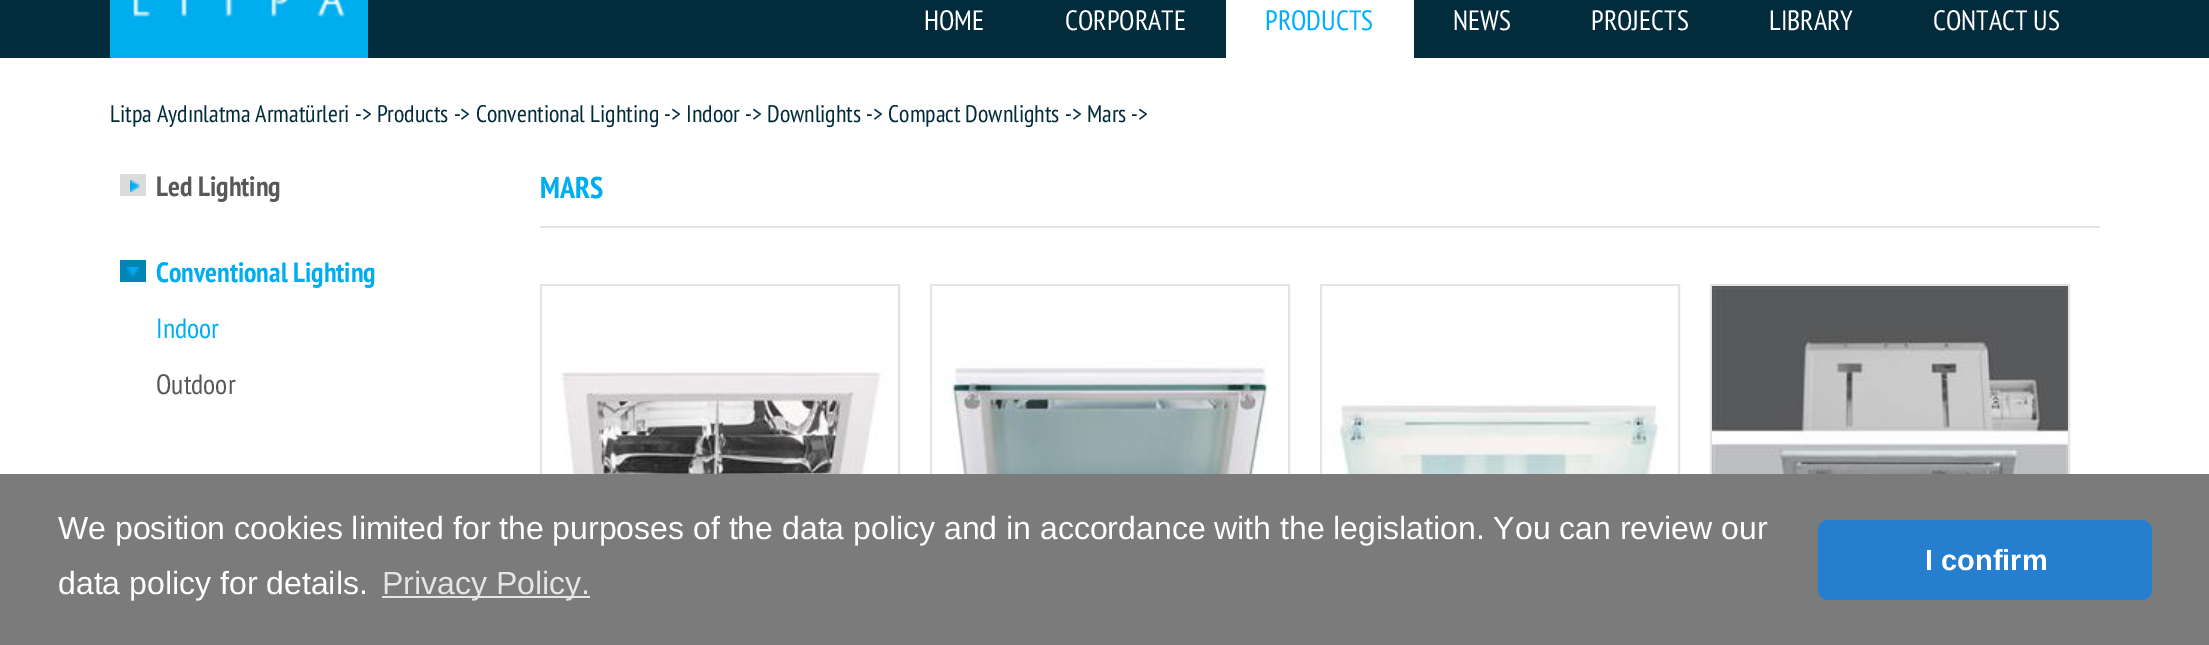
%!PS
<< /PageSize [2209 645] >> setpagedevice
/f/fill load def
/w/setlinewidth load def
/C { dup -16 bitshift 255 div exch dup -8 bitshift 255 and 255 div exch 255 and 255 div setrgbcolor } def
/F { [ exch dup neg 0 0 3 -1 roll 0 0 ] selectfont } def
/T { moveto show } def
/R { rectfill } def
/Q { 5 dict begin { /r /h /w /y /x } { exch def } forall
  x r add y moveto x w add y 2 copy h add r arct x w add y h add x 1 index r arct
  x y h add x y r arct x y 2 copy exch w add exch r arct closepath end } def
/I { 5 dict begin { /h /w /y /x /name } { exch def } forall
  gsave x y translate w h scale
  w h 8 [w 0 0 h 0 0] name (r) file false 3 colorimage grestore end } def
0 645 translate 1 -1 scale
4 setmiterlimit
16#FFFFFF C
0 0 2209 645 R
16#022B3B C
0 0 2209 58 R
(1.rgb) 110 0 258 58 I
/PTSansNarrow-Regular 28 F
16#FFFFFF C
(HOME) 924 30 T
(CORPORATE) 1065 30 T
1226 0 188 58 R
16#00AEFF C
(PRODUCTS) 1265 30 T
16#FFFFFF C
(NEWS) 1453 30 T
(PROJECTS) 1591 30 T
(LIBRARY) 1769 30 T
(CONTACT US) 1933 30 T
/PTSansNarrow-Regular 24 F
16#022B3B C
(Litpa Aydınlatma Armatürleri -> Products -> Conventional Lighting -> Indoor -> Downlights -> Compact Downlights -> Mars ->) 110 122 T
16#DBDBDB C
120 174 26 22 R
(2.rgb) 130 180 10 12 I
/PTSansNarrow-Bold 28 F
16#585858 C
(Led Lighting) 156 196 T
16#0184B6 C
120 260 26 22 R
(3.rgb) 127 267 12 10 I
16#00ADEF C
(Conventional Lighting) 156 282 T
/PTSansNarrow-Regular 28 F
(Indoor) 156 338 T
16#585858 C
(Outdoor) 156 394 T
16#E4E4E4 C
540 226 1560 2 R
/PTSansNarrow-Bold 30 F
16#00ADEF C
(MARS) 540 198 T
16#E4E4E4 C
2 w
541 285 358 358 rectstroke
(4.rgb) 542 286 356 188 I
931 285 358 358 rectstroke
(5.rgb) 932 286 356 188 I
1321 285 358 358 rectstroke
(6.rgb) 1322 286 356 188 I
1711 285 358 358 rectstroke
(7.rgb) 1712 286 356 188 I
16#7B7B7B C
0 474 2209 171 R
/LiberationSans-Regular 32 F
16#FFFFFF C
(We position cookies limited for the purposes of the data policy and in accordance with the legislation. You can review our) 58 539 T
(data policy for details.) 58 594 T
16#E5E5E5 C
382 596 208 2 R
(Privacy Policy.) 382 594 T
16#267FCE C
1818 520 334 80 10 Q f
/LiberationSans-Bold 29 F
16#FFFFFF C
(I confirm) 1925 570 T
showpage
